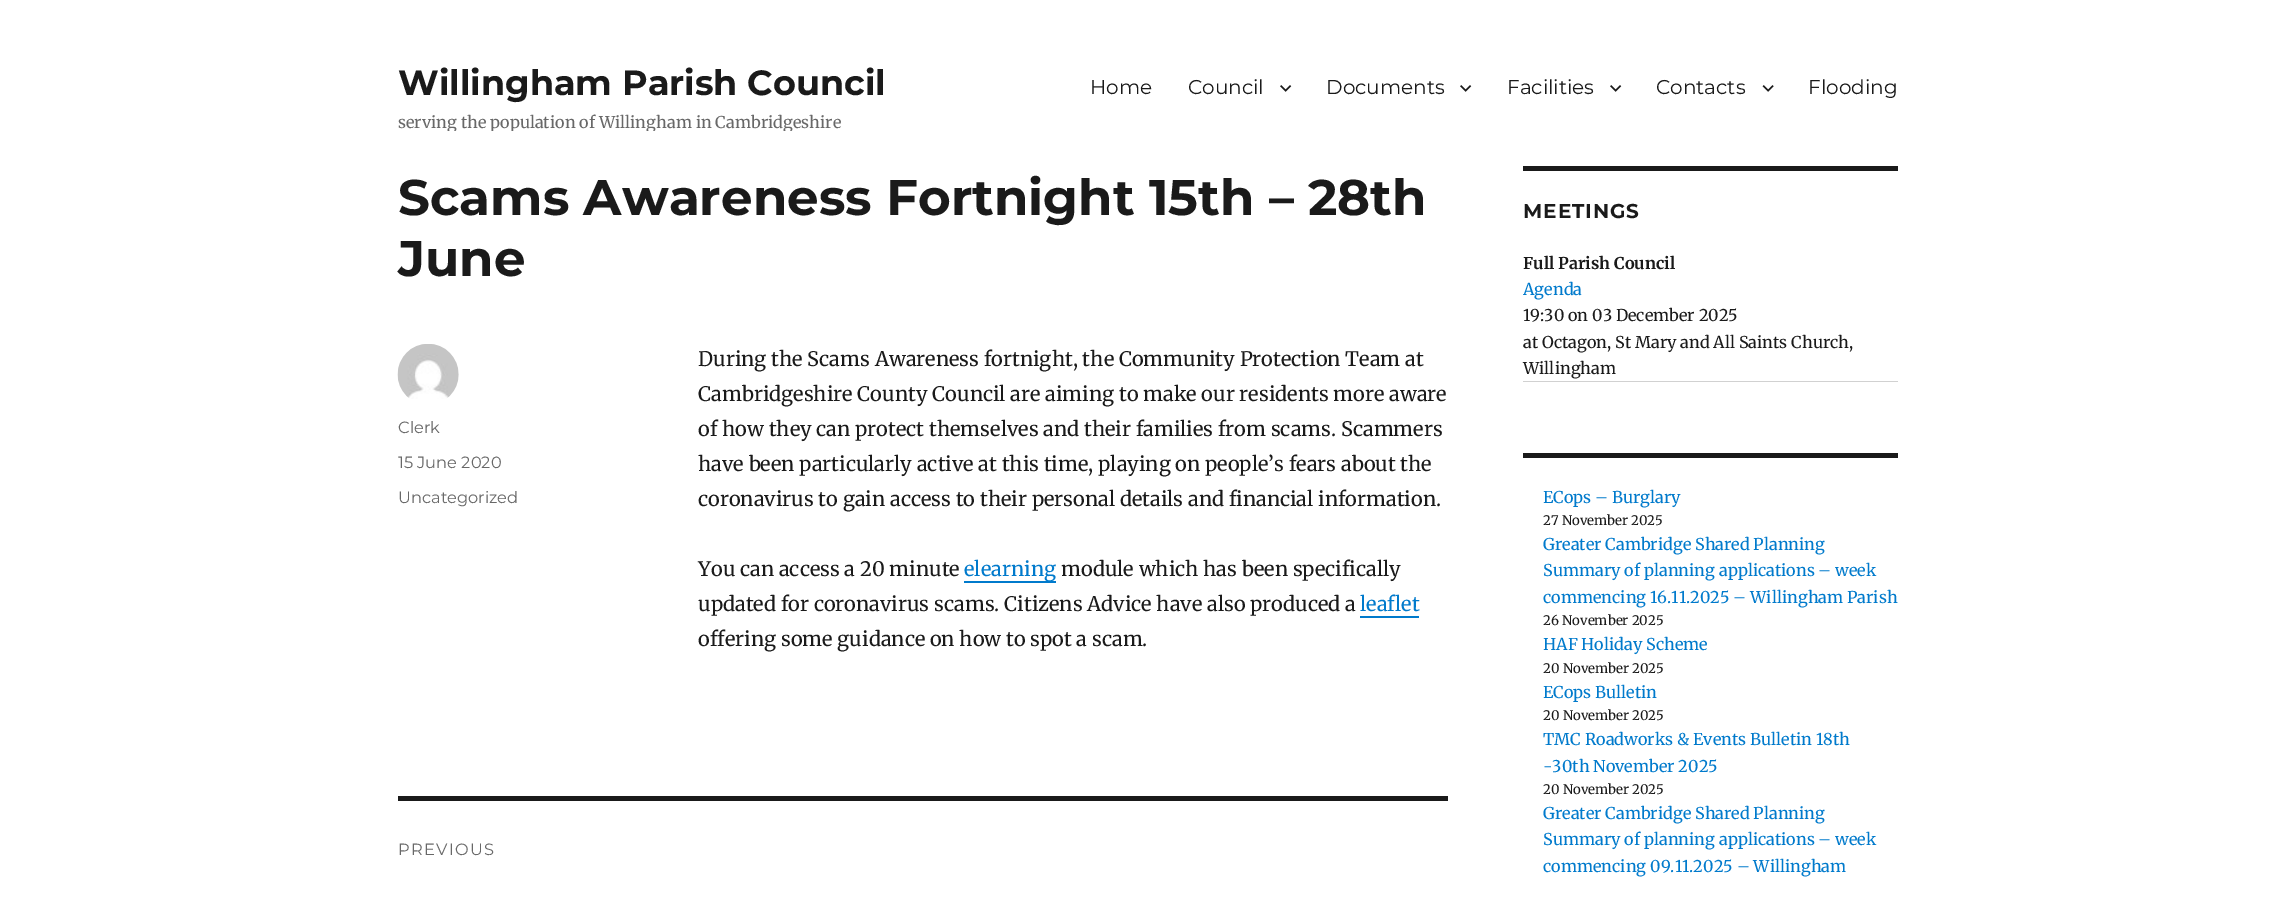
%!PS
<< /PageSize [2295 908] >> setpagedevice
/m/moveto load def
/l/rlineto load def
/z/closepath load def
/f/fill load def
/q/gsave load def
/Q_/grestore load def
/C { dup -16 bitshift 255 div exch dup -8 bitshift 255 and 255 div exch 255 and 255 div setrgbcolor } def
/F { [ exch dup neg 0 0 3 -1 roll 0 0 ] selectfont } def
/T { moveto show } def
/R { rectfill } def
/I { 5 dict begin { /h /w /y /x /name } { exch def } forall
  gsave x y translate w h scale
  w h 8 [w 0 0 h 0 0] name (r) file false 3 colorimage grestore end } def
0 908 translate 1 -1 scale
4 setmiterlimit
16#FFFFFF C
0 0 2295 908 R
/Montserrat-Bold 35 F
16#1A1A1A C
(Willingham Parish Council) 398 95 T
q
398 61 487 70 rectclip
/Merriweather-Regular 16.25 F
16#686868 C
(serving the population of Willingham in Cambridgeshire) 398 128 T
Q_
/Montserrat-Regular 20 F
(Home) 1090 94 T
(Council) 1188 94 T
(1.rgb) 1280 85 12 7 I
(Documents) 1326 94 T
(1.rgb) 1460 85 12 7 I
(Facilities) 1507 94 T
(1.rgb) 1610 85 12 7 I
(Contacts) 1656 94 T
(2.rgb) 1762 85 12 7 I
(Flooding) 1808 94 T
/Montserrat-Bold 50 F
(Scams Awareness Fortnight 15th – 28th) 398 215 T
(June) 398 276 T
(3.rgb) 397 344 62 55 I
/Montserrat-Regular 16.25 F
16#686868 C
(Clerk) 398 433 T
(15 June 2020) 398 468 T
(Uncategorized) 398 503 T
/Merriweather-Regular 20 F
16#1A1A1A C
(During the Scams Awareness fortnight, the Community Protection Team at) 698 366 T
(Cambridgeshire County Council are aiming to make our residents more aware) 698 401 T
(of how they can protect themselves and their families from scams. Scammers) 698 436 T
(have been particularly active at this time, playing on people’s fears about the) 698 471 T
(coronavirus to gain access to their personal details and financial information.) 698 506 T
(You can access a 20 minute) 698 576 T
16#007ACC C
964 581 92 2 R
(elearning) 964 576 T
16#1A1A1A C
(module which has been specifically) 1061 576 T
(updated for coronavirus scams. Citizens Advice have also produced a) 698 611 T
16#007ACC C
(leaflet) 1360 611 T
1360 616 m 0 2 l 59 0 l 0 -25 l 0 23 l z f
16#1A1A1A C
(offering some guidance on how to spot a scam.) 698 646 T
398 796 1050 5 R
/Montserrat-Regular 16.25 F
16#686868 C
398 855 m 1.25 0 (PREVIOUS) ashow
16#1A1A1A C
1523 166 375 5 R
/Montserrat-Bold 20 F
1523 218 m 1 0 (MEETINGS) ashow
/Merriweather-Bold 16.25 F
(Full Parish Council) 1523 269 T
/Merriweather-Regular 16.25 F
16#007ACC C
(Agenda) 1523 295 T
16#1A1A1A C
(19:30 on 03 December 2025) 1523 321 T
(at Octagon, St Mary and All Saints Church,) 1523 348 T
(Willingham) 1523 374 T
16#D1D1D1 C
1523 381 375 1 R
16#1A1A1A C
1523 453 375 5 R
16#007ACC C
(ECops – Burglary) 1543 503 T
/Merriweather-Regular 13.25 F
16#1A1A1A C
(27 November 2025) 1543 525 T
/Merriweather-Regular 16.25 F
16#007ACC C
(Greater Cambridge Shared Planning) 1543 550 T
(Summary of planning applications – week) 1543 576 T
(commencing 16.11.2025 – Willingham Parish) 1543 603 T
/Merriweather-Regular 13.25 F
16#1A1A1A C
(26 November 2025) 1543 625 T
/Merriweather-Regular 16.25 F
16#007ACC C
(HAF Holiday Scheme) 1543 650 T
/Merriweather-Regular 13.25 F
16#1A1A1A C
(20 November 2025) 1543 673 T
/Merriweather-Regular 16.25 F
16#007ACC C
(ECops Bulletin) 1543 698 T
/Merriweather-Regular 13.25 F
16#1A1A1A C
(20 November 2025) 1543 720 T
/Merriweather-Regular 16.25 F
16#007ACC C
(TMC Roadworks & Events Bulletin 18th) 1543 745 T
(-30th November 2025) 1543 772 T
/Merriweather-Regular 13.25 F
16#1A1A1A C
(20 November 2025) 1543 794 T
/Merriweather-Regular 16.25 F
16#007ACC C
(Greater Cambridge Shared Planning) 1543 819 T
(Summary of planning applications – week) 1543 845 T
(commencing 09.11.2025 – Willingham) 1543 872 T
showpage
